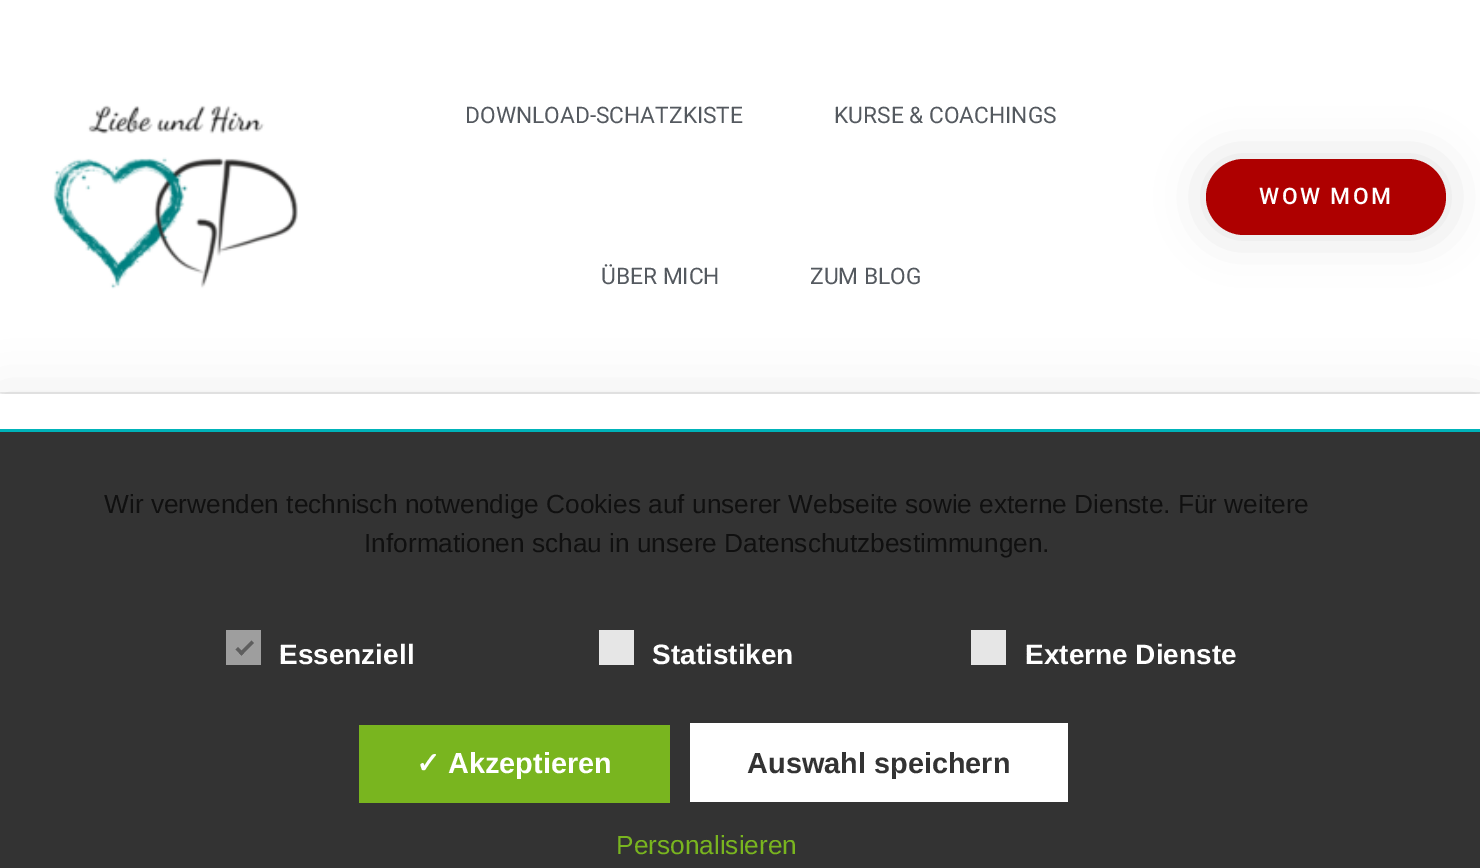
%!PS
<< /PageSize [1480 868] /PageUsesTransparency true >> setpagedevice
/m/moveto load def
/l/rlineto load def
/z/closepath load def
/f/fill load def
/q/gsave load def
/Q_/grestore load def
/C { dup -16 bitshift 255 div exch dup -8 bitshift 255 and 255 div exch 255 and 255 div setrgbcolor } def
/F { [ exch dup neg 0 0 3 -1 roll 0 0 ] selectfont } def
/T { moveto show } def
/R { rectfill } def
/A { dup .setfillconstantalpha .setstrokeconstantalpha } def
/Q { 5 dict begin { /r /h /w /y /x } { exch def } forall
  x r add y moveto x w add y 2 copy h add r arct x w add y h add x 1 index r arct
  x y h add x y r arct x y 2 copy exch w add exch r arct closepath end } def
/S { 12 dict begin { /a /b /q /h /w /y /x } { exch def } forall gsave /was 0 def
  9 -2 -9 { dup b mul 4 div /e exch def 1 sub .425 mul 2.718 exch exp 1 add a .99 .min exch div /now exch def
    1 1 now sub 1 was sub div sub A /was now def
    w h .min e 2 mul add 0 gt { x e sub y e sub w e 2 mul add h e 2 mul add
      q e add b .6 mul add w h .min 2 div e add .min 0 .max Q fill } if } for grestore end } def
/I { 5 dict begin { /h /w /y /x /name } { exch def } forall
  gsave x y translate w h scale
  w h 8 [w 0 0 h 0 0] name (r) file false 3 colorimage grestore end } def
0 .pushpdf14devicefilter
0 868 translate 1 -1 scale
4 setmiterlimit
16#FFFFFF C
0 0 1480 868 R
q
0 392 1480 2 rectclip
16#000000 C
0 0 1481 392 0 21 .15 S
Q_
(1.rgb) 53 105 245 184 I
/Roboto-Regular 22.75 F
16#54595F C
(DOWNLOAD-SCHATZKISTE) 465 123 T
(KURSE & COACHINGS) 834 123 T
(ÜBER MICH) 601 284 T
(ZUM BLOG) 810 284 T
16#000000 C
1206 159 240 76 38 23.5 .12 S
16#AE0000 C
1206 159 240 76 38 Q f
/Roboto-Medium 22.75 F
16#FFFFFF C
1259 204 m 2.5 0 (WOW MOM) ashow
16#00BBC2 C
0 429 1480 3 R
16#000000 C
0 397 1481 35 0 26 .08 S
16#FFFFFF C
0 394 1480 35 R
16#333333 C
0 432 1480 436 R
/LiberationSans-Regular 26.25 F
16#101010 C
(Wir verwenden technisch notwendige Cookies auf unserer Webseite sowie externe Dienste. Für weitere) 104 513 T
(Informationen schau in unsere Datenschutzbestimmungen.) 364 552 T
16#9E9E9E C
226 630 35 35 R
16#5E5E5E C
251.5 640.5 m 2.5 2.5 l -12.5 12.5 l -2.5 -2.5 l z f
238 647 m 6 6 l -2.5 2.5 l -6 -6 l z f
/LiberationSans-Bold 28 F
16#FFFFFF C
(Essenziell) 279 664 T
16#E6E6E6 C
599 630 35 35 R
16#FFFFFF C
(Statistiken) 652 664 T
16#E6E6E6 C
971 630 35 35 R
16#FFFFFF C
(Externe Dienste) 1025 664 T
16#79B51F C
359 725 311 78 R
/DejaVuSans-Bold 28.9 F
16#FFFFFF C
(✓) 416 773 T
/LiberationSans-Bold 28.9 F
(Akzeptieren) 448 773 T
690 723 378 79 R
16#333333 C
(Auswahl speichern) 747 773 T
/LiberationSans-Regular 26.25 F
16#79B51F C
(Personalisieren) 616 854 T
.poppdf14devicefilter showpage
